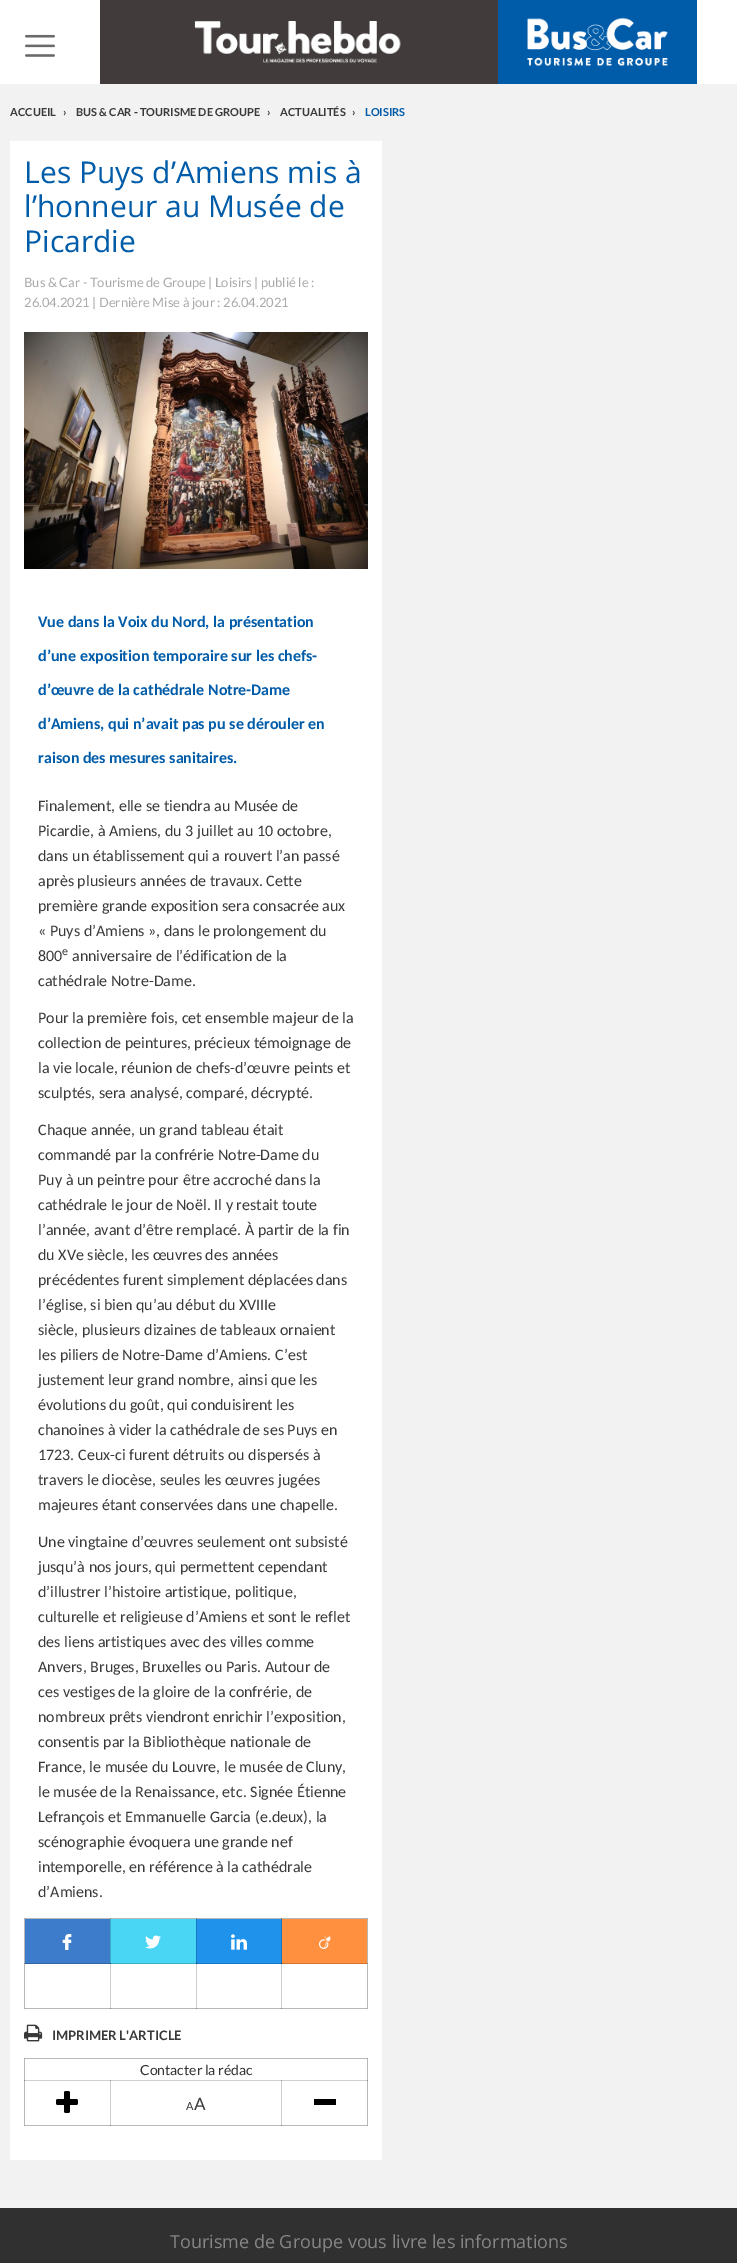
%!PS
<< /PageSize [737 2263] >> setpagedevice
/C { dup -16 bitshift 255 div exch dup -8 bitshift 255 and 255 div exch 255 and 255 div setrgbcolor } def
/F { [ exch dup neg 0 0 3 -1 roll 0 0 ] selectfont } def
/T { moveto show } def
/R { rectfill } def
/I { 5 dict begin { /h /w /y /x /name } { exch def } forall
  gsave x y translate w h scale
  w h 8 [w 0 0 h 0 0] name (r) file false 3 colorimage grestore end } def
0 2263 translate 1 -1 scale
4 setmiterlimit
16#FFFFFF C
0 0 737 2263 R
(1.rgb) 25 34 30 23 I
16#413B3B C
100 0 398 84 R
(2.rgb) 194 21 207 42 I
16#005CA9 C
498 0 199 84 R
(3.rgb) 526 17 142 49 I
16#F2F2F2 C
0 84 737 2124 R
/Lato-Bold 11 F
16#393939 C
(ACCUEIL) 10 116 T
(›) 63 116 T
(BUS & CAR - TOURISME DE GROUPE) 76 116 T
(›) 267 116 T
(ACTUALITÉS) 280 116 T
(›) 352 116 T
16#005CA9 C
(LOISIRS) 365 116 T
16#FFFFFF C
10 141 372 2019 R
16#CFCFCF C
110 1963 1 46 R
196 1963 1 46 R
281 1963 1 46 R
24 2080 87 1 R
110 2080 1 46 R
110 2080 172 1 R
16#969696 C
110 2080 1 1 R
16#CFCFCF C
281 2080 1 46 R
281 2080 87 1 R
16#969696 C
281 2080 1 1 R
/OpenSans-Regular 30 F
16#005CA9 C
(Les Puys d’Amiens mis à) 24 183 T
(l’honneur au Musée de) 24 217 T
(Picardie) 24 252 T
/Lato-Regular 13 F
16#AAAAAA C
(Bus & Car - Tourisme de Groupe | Loisirs | publié le :) 24 287 T
(26.04.2021 | Dernière Mise à jour : 26.04.2021) 24 307 T
(4.rgb) 24 332 344 237 I
/Carlito-Bold 16 F
16#005CA9 C
(Vue dans la Voix du Nord, la présentation) 38 627 T
(d’une exposition temporaire sur les chefs-) 38 661 T
(d’œuvre de la cathédrale Notre-Dame) 38 695 T
(d’Amiens, qui n’avait pas pu se dérouler en) 38 729 T
(raison des mesures sanitaires.) 38 763 T
/Carlito-Regular 16 F
16#393939 C
(Finalement, elle se tiendra au Musée de) 38 811 T
(Picardie, à Amiens, du 3 juillet au 10 octobre,) 38 836 T
(dans un établissement qui a rouvert l’an passé) 38 861 T
(après plusieurs années de travaux. Cette) 38 886 T
(première grande exposition sera consacrée aux) 38 911 T
(« Puys d’Amiens », dans le prolongement du) 38 936 T
(800) 38 961 T
/Carlito-Regular 12 F
(e) 62 955 T
/Carlito-Regular 16 F
(anniversaire de l’édification de la) 72 961 T
(cathédrale Notre-Dame.) 38 986 T
(Pour la première fois, cet ensemble majeur de la) 38 1023 T
(collection de peintures, précieux témoignage de) 38 1048 T
(la vie locale, réunion de chefs-d’œuvre peints et) 38 1073 T
(sculptés, sera analysé, comparé, décrypté.) 38 1098 T
(Chaque année, un grand tableau était) 38 1135 T
(commandé par la confrérie Notre-Dame du) 38 1160 T
(Puy à un peintre pour être accroché dans la) 38 1185 T
(cathédrale le jour de Noël. Il y restait toute) 38 1210 T
(l’année, avant d’être remplacé. À partir de la fin) 38 1235 T
(du XVe siècle, les œuvres des années) 38 1260 T
(précédentes furent simplement déplacées dans) 38 1285 T
(l’église, si bien qu’au début du XVIIIe) 38 1310 T
(siècle, plusieurs dizaines de tableaux ornaient) 38 1335 T
(les piliers de Notre-Dame d’Amiens. C’est) 38 1360 T
(justement leur grand nombre, ainsi que les) 38 1385 T
(évolutions du goût, qui conduisirent les) 38 1410 T
(chanoines à vider la cathédrale de ses Puys en) 38 1435 T
(1723. Ceux-ci furent détruits ou dispersés à) 38 1460 T
(travers le diocèse, seules les œuvres jugées) 38 1485 T
(majeures étant conservées dans une chapelle.) 38 1510 T
(Une vingtaine d’œuvres seulement ont subsisté) 38 1547 T
(jusqu’à nos jours, qui permettent cependant) 38 1572 T
(d’illustrer l’histoire artistique, politique,) 38 1597 T
(culturelle et religieuse d’Amiens et sont le reflet) 38 1622 T
(des liens artistiques avec des villes comme) 38 1647 T
(Anvers, Bruges, Bruxelles ou Paris. Autour de) 38 1672 T
(ces vestiges de la gloire de la confrérie, de) 38 1697 T
(nombreux prêts viendront enrichir l’exposition,) 38 1722 T
(consentis par la Bibliothèque nationale de) 38 1747 T
(France, le musée du Louvre, le musée de Cluny,) 38 1772 T
(le musée de la Renaissance, etc. Signée Étienne) 38 1797 T
(Lefrançois et Emmanuelle Garcia \(e.deux\), la) 38 1822 T
(scénographie évoquera une grande nef) 38 1847 T
(intemporelle, en référence à la cathédrale) 38 1872 T
(d’Amiens.) 38 1897 T
16#B8B8B8 C
24 1918 258 1 R
16#868686 C
110 1918 1 1 R
196 1918 1 1 R
16#CF7533 C
282 1963 86 1 R
16#B8B8B8 C
367 1918 1 91 R
16#868686 C
367 1963 1 1 R
16#B8B8B8 C
24 2008 344 1 R
16#868686 C
110 2008 1 1 R
196 2008 1 1 R
281 2008 1 1 R
16#A6A6A6 C
367 2008 1 1 R
16#B8B8B8 C
24 1918 1 91 R
16#A6A6A6 C
24 1918 1 1 R
24 2008 1 1 R
16#868686 C
24 1963 1 1 R
16#3D7CCB C
25 1919 85 44 R
16#3265A5 C
25 1963 85 1 R
(5.rgb) 62 1934 10 16 I
16#48D6F4 C
111 1919 85 44 R
16#3BAEC6 C
110 1919 1 45 R
110 1963 86 1 R
16#205D69 C
110 1963 1 1 R
(6.rgb) 145 1935 16 14 I
16#1F92EB C
197 1919 84 44 R
16#1976BF C
196 1919 1 45 R
281 1919 1 45 R
196 1963 86 1 R
16#0E3E66 C
196 1963 1 1 R
281 1963 1 1 R
(7.rgb) 231 1934 16 16 I
16#FF903F C
282 1919 85 44 R
16#B8B8B8 C
281 1918 87 1 R
16#868686 C
281 1918 1 1 R
16#A6A6A6 C
367 1918 1 1 R
(8.rgb) 319 1935 12 14 I
(9.rgb) 24 2024 19 18 I
/Lato-Bold 13 F
16#393939 C
(IMPRIMER L'ARTICLE) 52 2040 T
16#B8B8B8 C
367 2058 1 68 R
16#868686 C
367 2080 1 1 R
16#B8B8B8 C
24 2125 344 1 R
16#868686 C
110 2125 1 1 R
281 2125 1 1 R
16#A6A6A6 C
367 2125 1 1 R
16#B8B8B8 C
24 2058 1 68 R
16#A6A6A6 C
24 2125 1 1 R
16#868686 C
24 2080 1 1 R
16#B8B8B8 C
24 2058 344 1 R
16#A6A6A6 C
24 2058 1 1 R
367 2058 1 1 R
/Lato-Regular 14 F
16#333333 C
(Contacter la rédac) 140 2075 T
(10.rgb) 56 2091 22 22 I
/Lato-Regular 11 F
16#393939 C
(A) 186 2110 T
/Lato-Regular 17 F
(A) 194 2110 T
16#000000 C
314 2099 22 6 R
16#303030 C
0 2208 737 55 R
/OpenSans-Regular 18 F
16#868686 C
(Tourisme de Groupe vous livre les informations) 170 2248 T
showpage
